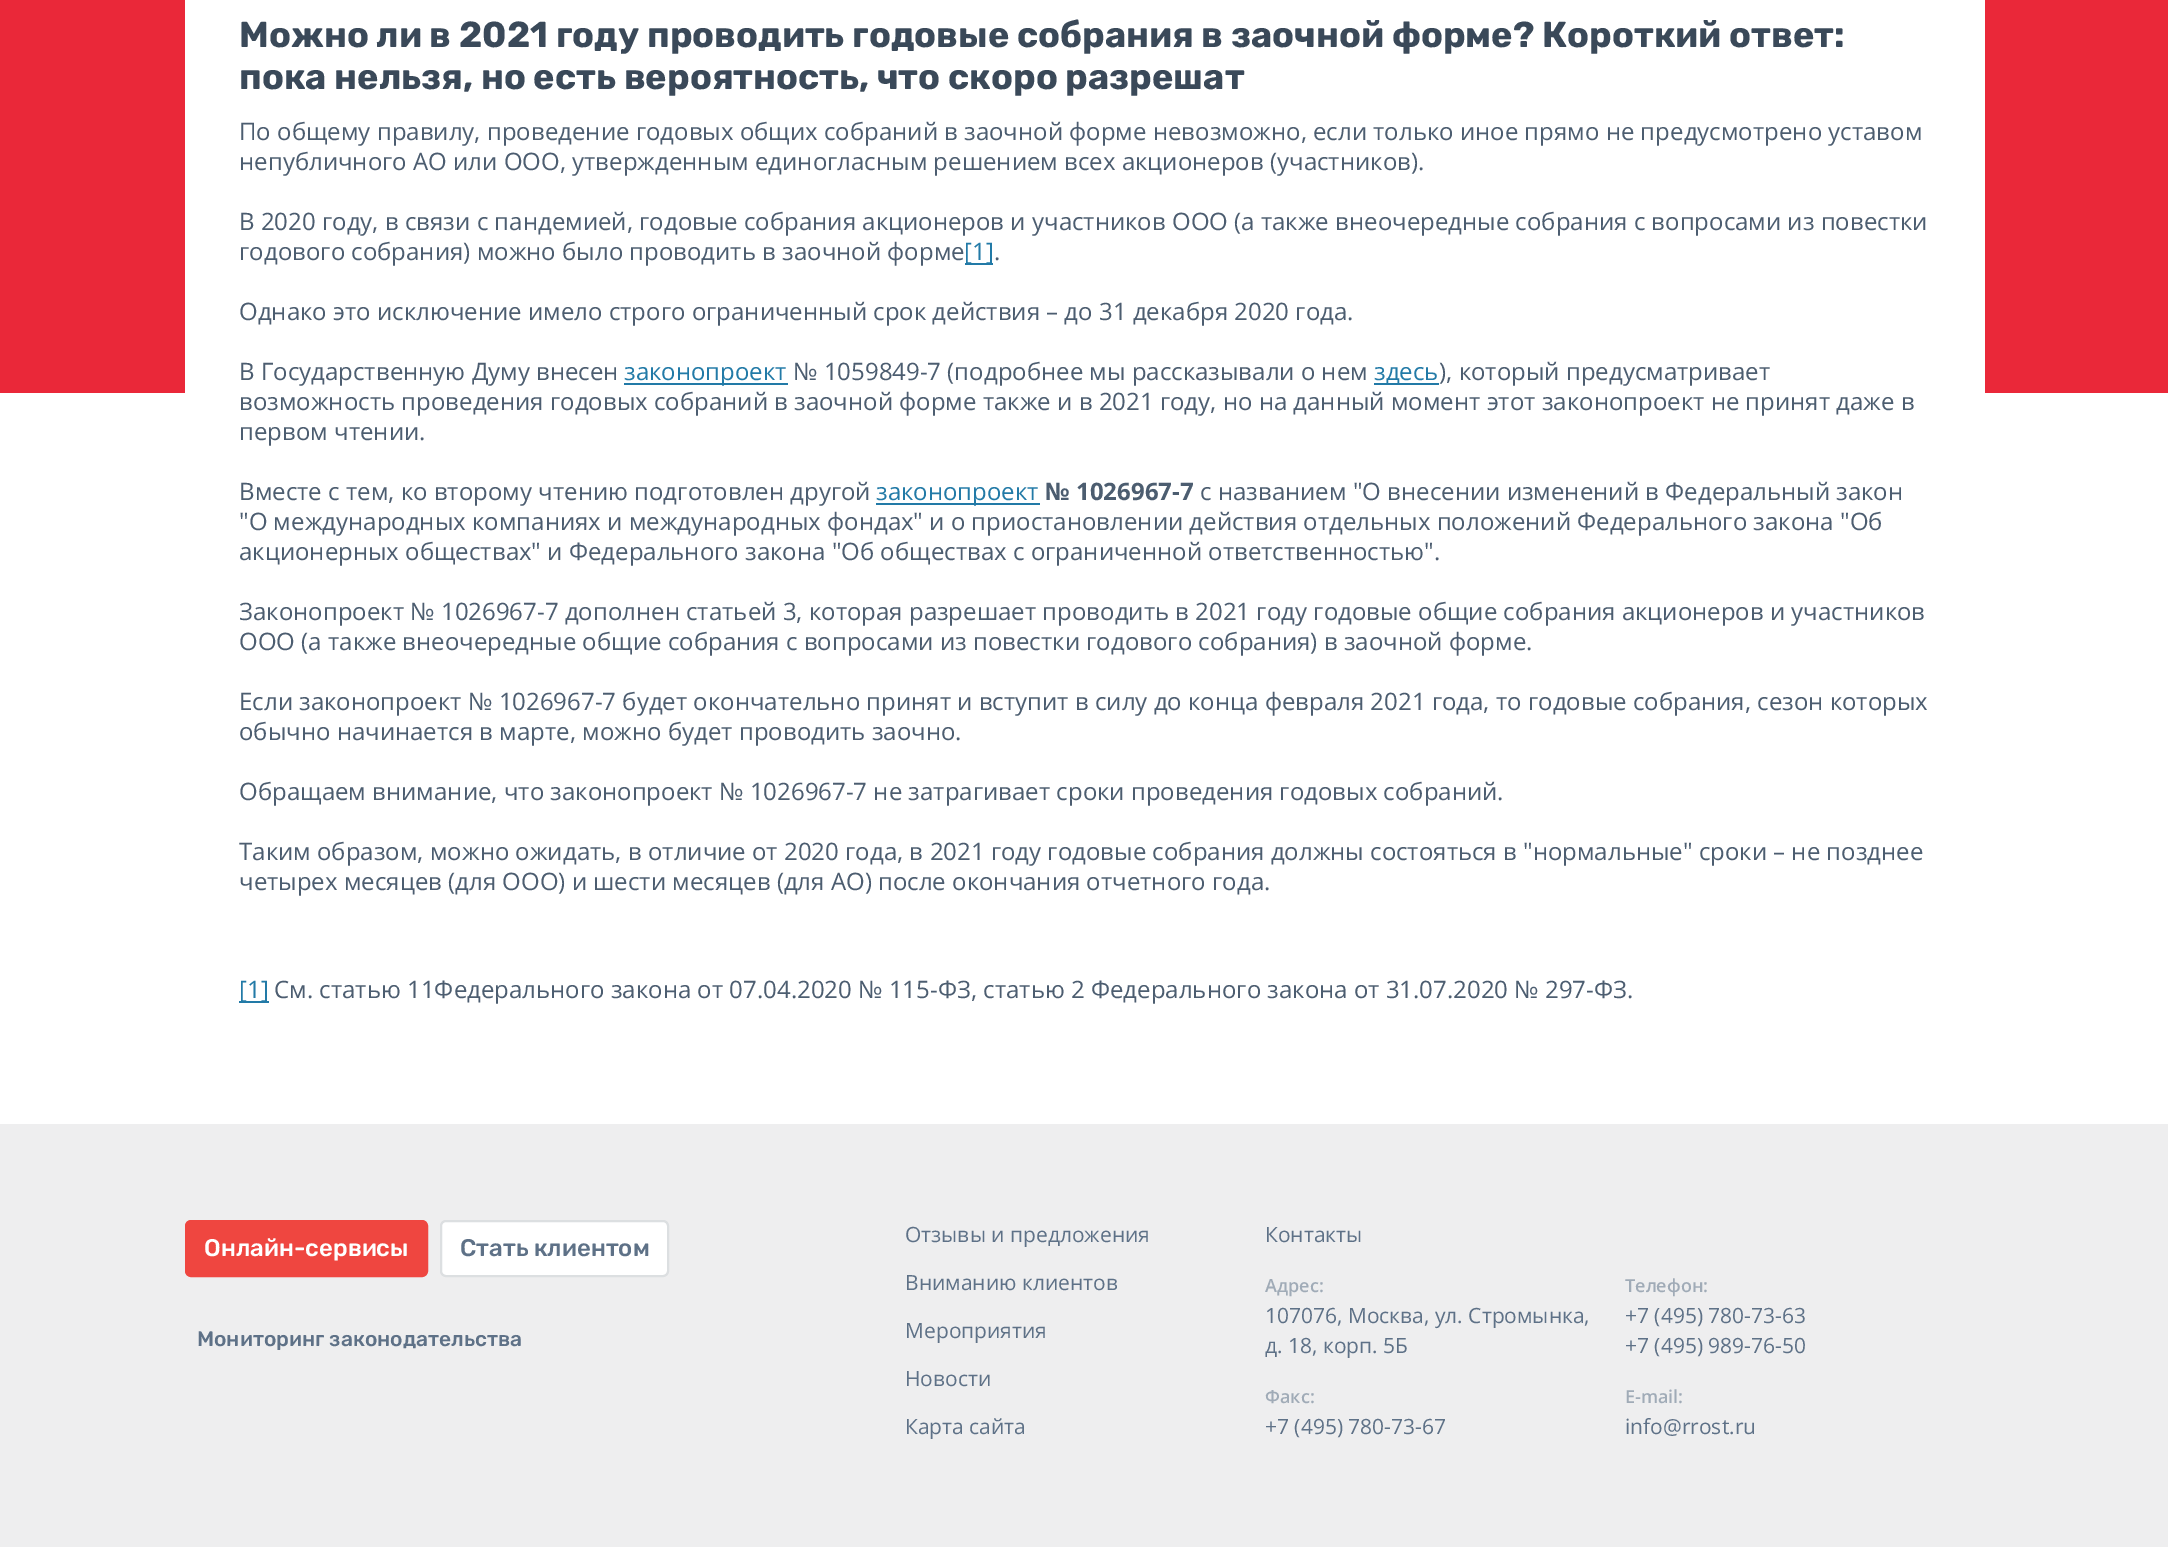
%!PS
<< /PageSize [2168 1547] >> setpagedevice
/f/fill load def
/s/stroke load def
/q/gsave load def
/Q_/grestore load def
/w/setlinewidth load def
/C { dup -16 bitshift 255 div exch dup -8 bitshift 255 and 255 div exch 255 and 255 div setrgbcolor } def
/F { [ exch dup neg 0 0 3 -1 roll 0 0 ] selectfont } def
/T { moveto show } def
/R { rectfill } def
/Q { 5 dict begin { /r /h /w /y /x } { exch def } forall
  x r add y moveto x w add y 2 copy h add r arct x w add y h add x 1 index r arct
  x y h add x y r arct x y 2 copy exch w add exch r arct closepath end } def
0 1547 translate 1 -1 scale
4 setmiterlimit
16#FFFFFF C
0 0 2168 1547 R
16#EA2839 C
0 0 2168 393 R
16#FFFFFF C
185 0 1800 393 R
/Rubik-Bold 36 F
16#3A4959 C
(Можно ли в 2021 году проводить годовые собрания в заочной форме? Короткий ответ:) 239 47 T
(пока нельзя, но есть вероятность, что скоро разрешат) 239 89 T
/OpenSans-Regular 24 F
16#4C5D70 C
(По общему правилу, проведение годовых общих собраний в заочной форме невозможно, если только иное прямо не предусмотрено уставом) 239 140 T
(непубличного АО или ООО, утвержденным единогласным решением всех акционеров \(участников\).) 239 170 T
(В 2020 году, в связи с пандемией, годовые собрания акционеров и участников ООО \(а также внеочередные собрания с вопросами из повестки) 239 230 T
(годового собрания\) можно было проводить в заочной форме) 239 260 T
16#227AA7 C
965 263 28 2 R
([1]) 964 260 T
16#4C5D70 C
(.) 994 260 T
(Однако это исключение имело строго ограниченный срок действия – до 31 декабря 2020 года.) 239 320 T
(В Государственную Думу внесен) 239 380 T
16#227AA7 C
624 383 164 2 R
(законопроект) 624 380 T
16#4C5D70 C
(№ 1059849-7 \(подробнее мы рассказывали о нем) 793 380 T
16#227AA7 C
1374 383 65 2 R
(здесь) 1374 380 T
16#4C5D70 C
(\), который предусматривает) 1439 380 T
(возможность проведения годовых собраний в заочной форме также и в 2021 году, но на данный момент этот законопроект не принят даже в) 239 410 T
(первом чтении.) 239 440 T
(Вместе с тем, ко второму чтению подготовлен другой) 239 500 T
16#227AA7 C
876 503 164 2 R
(законопроект) 876 500 T
/OpenSans-Bold 24 F
16#4C5D70 C
(№ 1026967-7) 1045 500 T
/OpenSans-Regular 24 F
(с названием "О внесении изменений в Федеральный закон) 1200 500 T
("О международных компаниях и международных фондах" и о приостановлении действия отдельных положений Федерального закона "Об) 239 530 T
(акционерных обществах" и Федерального закона "Об обществах с ограниченной ответственностью".) 239 560 T
(Законопроект № 1026967-7 дополнен статьей 3, которая разрешает проводить в 2021 году годовые общие собрания акционеров и участников) 239 620 T
(ООО \(а также внеочередные общие собрания с вопросами из повестки годового собрания\) в заочной форме.) 239 650 T
(Если законопроект № 1026967-7 будет окончательно принят и вступит в силу до конца февраля 2021 года, то годовые собрания, сезон которых) 239 710 T
(обычно начинается в марте, можно будет проводить заочно.) 239 740 T
(Обращаем внимание, что законопроект № 1026967-7 не затрагивает сроки проведения годовых собраний.) 239 800 T
(Таким образом, можно ожидать, в отличие от 2020 года, в 2021 году годовые собрания должны состояться в "нормальные" сроки – не позднее) 239 860 T
(четырех месяцев \(для ООО\) и шести месяцев \(для АО\) после окончания отчетного года.) 239 890 T
16#227AA7 C
239 1001 30 2 R
([1]) 239 998 T
16#4C5D70 C
(См. статью 11Федерального закона от 07.04.2020 № 115-ФЗ, статью 2 Федерального закона от 31.07.2020 № 297-ФЗ.) 274 998 T
16#EEEEEF C
0 1124 2168 423 R
16#EF4640 C
186 1221 241 55 5 Q q f Q_
2 w
s
/Rubik-Medium 24 F
16#FFFFFF C
(Онлайн-сервисы) 204 1256 T
441 1221 227 55 5 Q q f Q_
16#DCDFE1 C
s
16#5E7187 C
(Стать клиентом) 460 1256 T
/Rubik-Medium 21 F
(Мониторинг законодательства) 197 1346 T
/OpenSans-Regular 21 F
(Отзывы и предложения) 905 1242 T
(Вниманию клиентов) 905 1290 T
(Мероприятия) 905 1338 T
(Новости) 905 1386 T
(Карта сайта) 905 1434 T
(Контакты) 1265 1242 T
/OpenSans-SemiBold 18 F
16#A0ABB7 C
(Адрес:) 1265 1292 T
/OpenSans-Regular 21 F
16#5E7187 C
(107076, Москва, ул. Стромынка,) 1265 1323 T
(д. 18, корп. 5Б) 1265 1353 T
/OpenSans-SemiBold 18 F
16#A0ABB7 C
(Телeфон:) 1625 1292 T
/OpenSans-Regular 21 F
16#5E7187 C
(+7 \(495\) 780-73-63) 1625 1323 T
(+7 \(495\) 989-76-50) 1625 1353 T
/OpenSans-SemiBold 18 F
16#A0ABB7 C
(Факс:) 1265 1403 T
/OpenSans-Regular 21 F
16#5E7187 C
(+7 \(495\) 780-73-67) 1265 1434 T
/OpenSans-SemiBold 18 F
16#A0ABB7 C
(E-mail:) 1625 1403 T
/OpenSans-Regular 21 F
16#5E7187 C
(info@rrost.ru) 1625 1434 T
showpage
